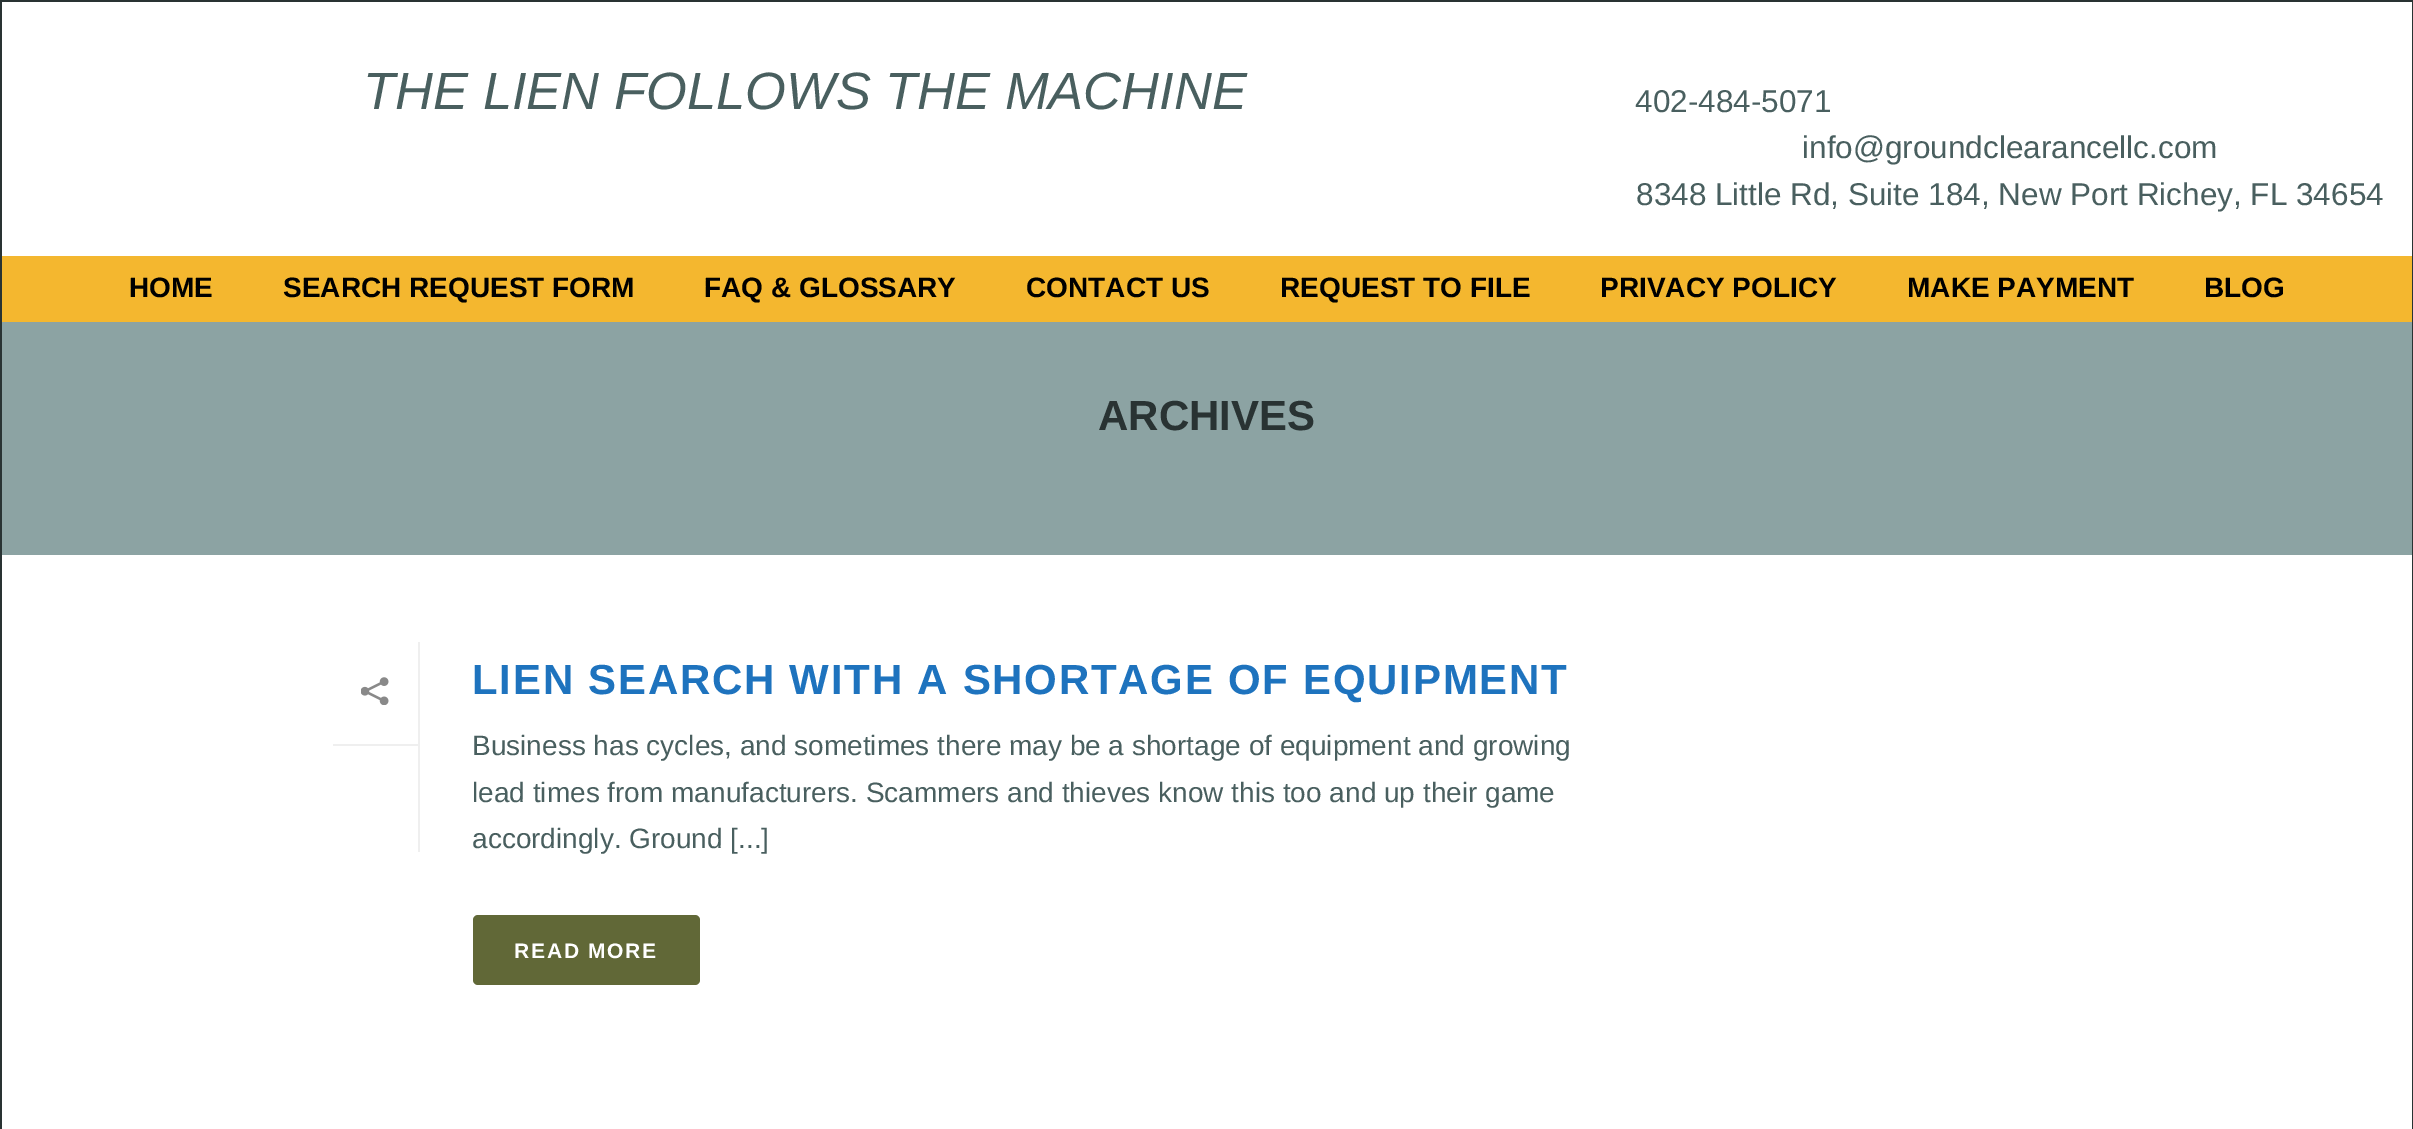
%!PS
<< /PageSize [2413 1129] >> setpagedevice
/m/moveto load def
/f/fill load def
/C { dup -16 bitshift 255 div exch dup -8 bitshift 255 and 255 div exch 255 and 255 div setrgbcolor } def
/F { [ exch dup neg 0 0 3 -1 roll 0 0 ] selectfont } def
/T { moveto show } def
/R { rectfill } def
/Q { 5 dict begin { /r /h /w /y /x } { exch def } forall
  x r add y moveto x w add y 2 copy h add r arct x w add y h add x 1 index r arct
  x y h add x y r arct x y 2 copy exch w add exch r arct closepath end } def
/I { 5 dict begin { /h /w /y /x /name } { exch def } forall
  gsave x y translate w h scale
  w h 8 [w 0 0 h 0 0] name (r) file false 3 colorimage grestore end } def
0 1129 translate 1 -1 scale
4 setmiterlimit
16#FFFFFF C
0 0 2413 1129 R
16#293333 C
0 0 2413 2 R
0 0 2 1129 R
/LiberationSans-Italic 52.5 F
16#495F5F C
(THE LIEN FOLLOWS THE MACHINE) 363 109 T
/LiberationSans-Regular 31.5 F
(402-484-5071) 1635 112 T
(info@groundclearancellc.com) 1802 158 T
(8348 Little Rd, Suite 184, New Port Richey, FL 34654) 1636 205 T
16#F4B72F C
2 256 2410 66 R
/LiberationSans-Bold 28 F
16#000000 C
(HOME) 129 297 T
(SEARCH REQUEST FORM) 283 297 T
(FAQ & GLOSSARY) 704 297 T
(CONTACT US) 1026 297 T
(REQUEST TO FILE) 1280 297 T
(PRIVACY POLICY) 1600 297 T
(MAKE PAYMENT) 1907 297 T
(BLOG) 2204 297 T
16#8CA3A3 C
2 322 2410 233 R
/LiberationSans-Bold 42 F
16#293333 C
(ARCHIVES) 1098 430 T
16#EFEFEF C
418 642 2 210 R
333 744 85 2 R
(1.rgb) 361 677 28 28 I
16#1E73BE C
472 694 m 1.75 0 (LIEN SEARCH WITH A SHORTAGE OF EQUIPMENT) ashow
/LiberationSans-Regular 28 F
16#495F5F C
(Business has cycles, and sometimes there may be a shortage of equipment and growing) 472 755 T
(lead times from manufacturers. Scammers and thieves know this too and up their game) 472 802 T
(accordingly. Ground [...]) 472 848 T
16#616837 C
473 915 227 70 5 Q f
/LiberationSans-Bold 21 F
16#FFFFFF C
514 958 m 1.75 0 (READ MORE) ashow
16#293333 C
2412 0 1 1129 R
showpage
